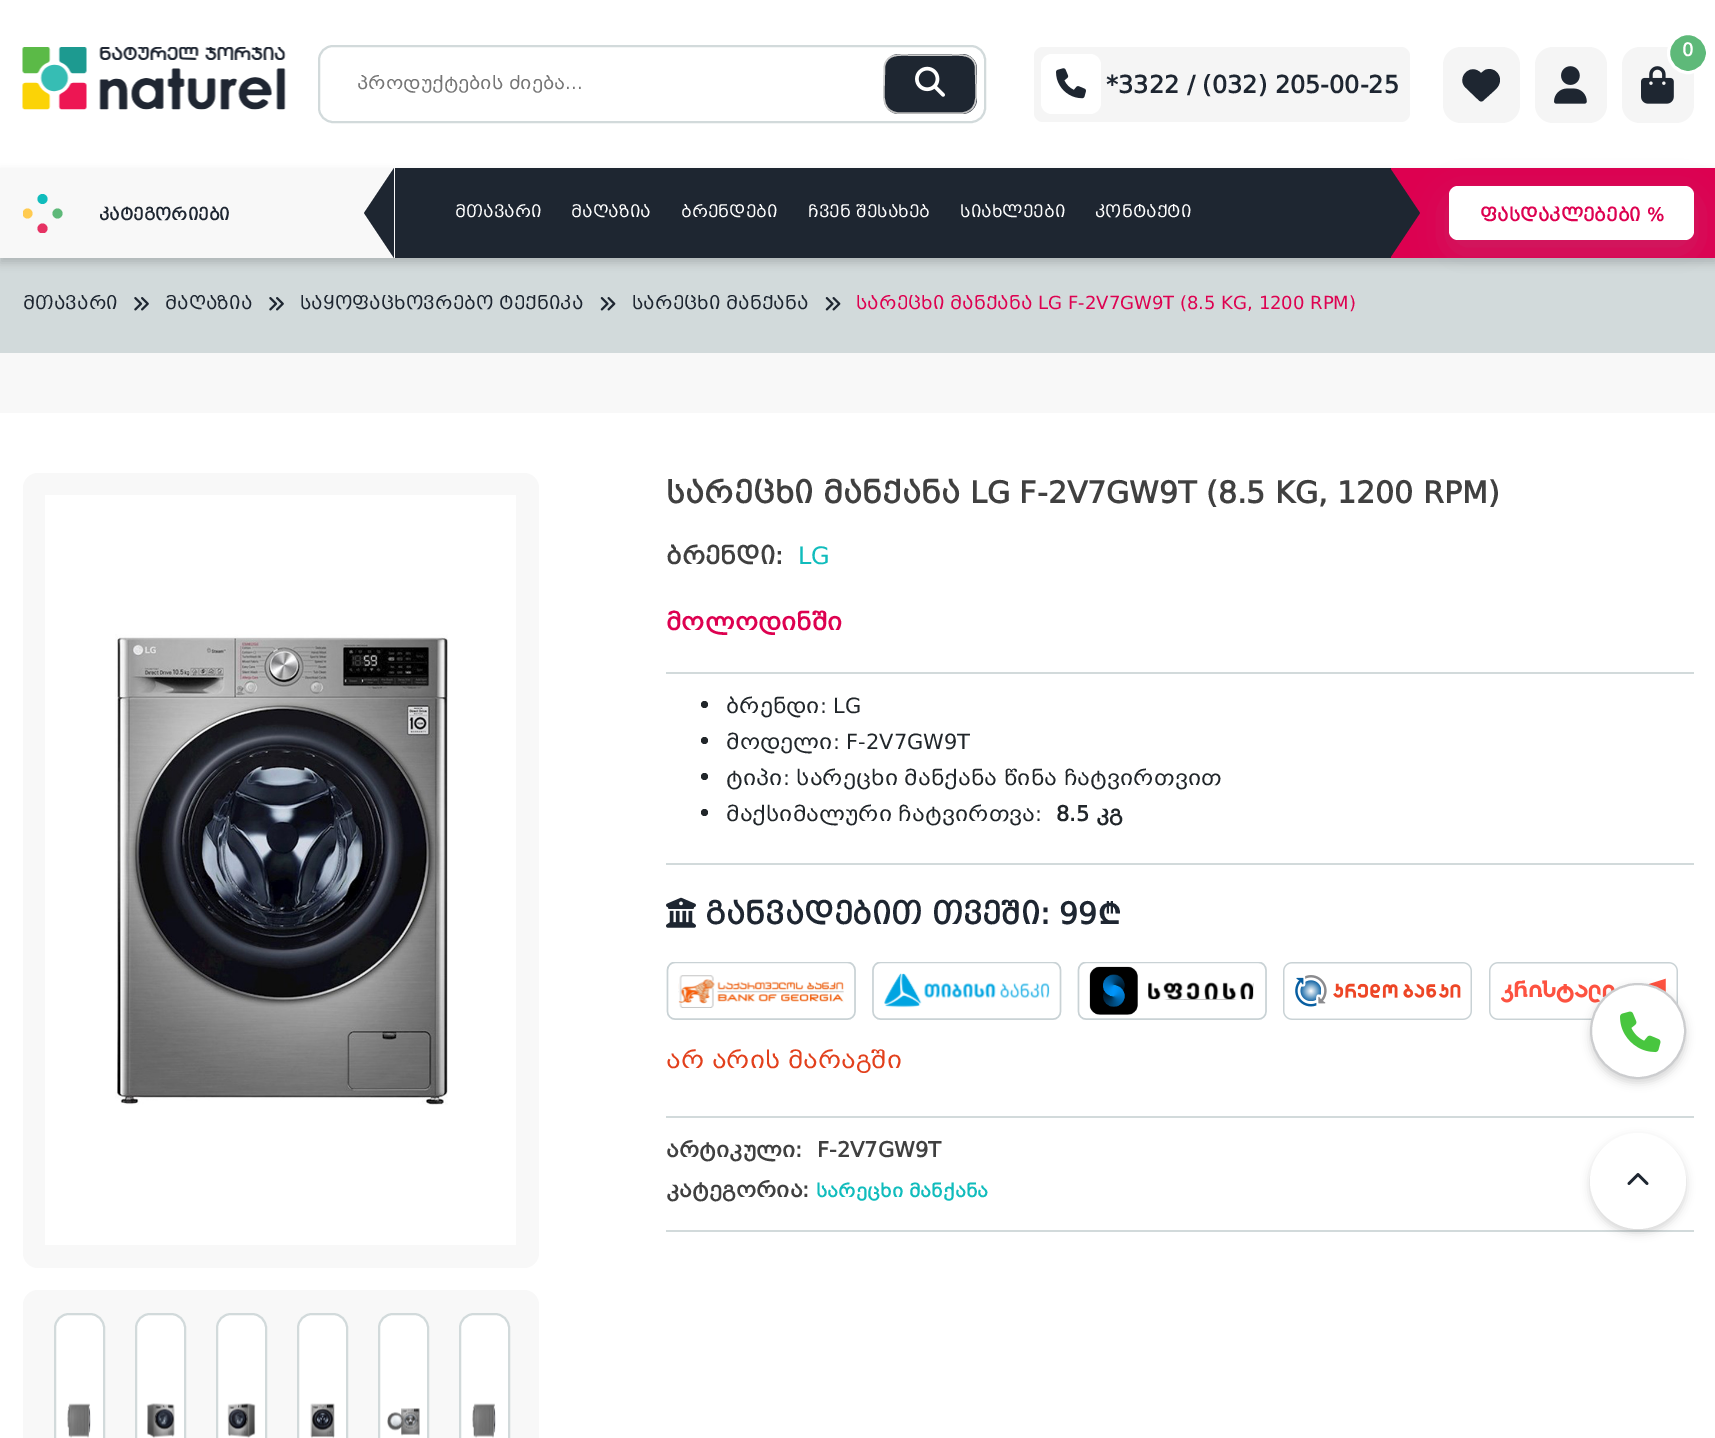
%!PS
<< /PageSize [1715 1438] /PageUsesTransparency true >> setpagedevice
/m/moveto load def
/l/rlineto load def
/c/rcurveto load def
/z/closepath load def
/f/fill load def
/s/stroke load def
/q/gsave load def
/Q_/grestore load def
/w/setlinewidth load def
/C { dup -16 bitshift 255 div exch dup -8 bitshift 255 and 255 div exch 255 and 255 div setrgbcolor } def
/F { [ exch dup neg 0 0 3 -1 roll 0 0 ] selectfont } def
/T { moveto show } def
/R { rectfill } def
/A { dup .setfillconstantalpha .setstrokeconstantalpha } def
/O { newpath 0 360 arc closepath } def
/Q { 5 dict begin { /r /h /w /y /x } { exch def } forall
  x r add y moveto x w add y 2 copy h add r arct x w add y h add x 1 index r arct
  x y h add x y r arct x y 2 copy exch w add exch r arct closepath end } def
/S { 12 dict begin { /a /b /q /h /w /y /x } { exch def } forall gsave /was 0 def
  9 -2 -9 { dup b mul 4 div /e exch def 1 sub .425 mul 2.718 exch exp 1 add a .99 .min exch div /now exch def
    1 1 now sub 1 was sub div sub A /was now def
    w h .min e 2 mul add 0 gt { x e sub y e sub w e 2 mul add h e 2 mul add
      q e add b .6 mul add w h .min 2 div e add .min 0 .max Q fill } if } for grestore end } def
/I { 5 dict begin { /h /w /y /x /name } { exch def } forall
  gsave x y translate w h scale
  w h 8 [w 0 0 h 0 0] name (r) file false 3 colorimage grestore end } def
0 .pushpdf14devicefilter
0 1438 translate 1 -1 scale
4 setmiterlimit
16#F8F8F8 C
0 0 1715 1438 R
16#FFFFFF C
0 0 1715 168 R
(1.rgb) 22 47 264 63 I
16#D2DADB C
2 w
319 46 666 76 14 Q s
/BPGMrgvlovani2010-Regular 18 F
16#757575 C
(პროდუქტების ძიება...) 357 89 T
16#1E2631 C
884 54 93 60 15 Q f
16#BBBBBB C
1.5 w
971.5 109 m -2.5 2.5 -6 4 -10 4 c -63 0 l -4 0 -7.5 -1.5 -10 -4 c s
16#CCCCCC C
888.5 109 m -6.5 -6 -4.5 -17 -4.5 -25 c .5 -18 l 2.5 -12.5 14.5 -11 24.5 -11 c 42 0 l 10 0 22 -1.5 24.5 11 c .5 18 l 0 8 2 19 -4.5 25 c s
(2.rgb) 915 66 30 31 I
16#F5F5F5 C
1034 47 376 75 9 Q f
16#FFFFFF C
1041 54 60 60 11 Q f
(3.rgb) 1056 68 30 31 I
/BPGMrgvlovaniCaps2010-Bold 24 F
16#1E2631 C
(*3322 / \(032\) 205-00-25) 1106 93 T
16#F5F5F5 C
1443 47 77 76 18 Q f
16#1E2631 C
1466 88 m 11 10.5 l 4 4 4.5 4 8.5 0 c 4.5 -4 l 3 -3 7.5 -6 9 -10 c 4 -9 -5 -18.5 -14 -14.5 c -1.5 1 -2.5 2 -4 3 c -11 -11 -25.5 5.5 -15 15 c z f
16#F5F5F5 C
1535 47 72 76 18 Q f
(4.rgb) 1554 66 33 38 I
1622 47 72 76 18 Q f
(5.rgb) 1641 66 33 38 I
16#5EB979 C
1688 53 19.5 O q f Q_
16#FFFFFF C
3 w
s
/BPGMrgvlovaniCaps2010-Bold 18 F
(0) 1682 56 T
16#D2DADB C
0 258 1715 95 R
16#000000 C
0 173 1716 90 0 4.5 .16 S
16#F8F8F8 C
0 168 395 90 R
q
23 194 40 39 rectclip
16#FFCB51 C
27.5 213.5 5 O f
16#E63263 C
42.5 228.5 5 O f
Q_
16#10BCBC C
42.5 199 5 O f
16#5EB979 C
57.5 213.5 5 O f
/BPGMrgvlovaniCaps2010-Bold 16.5 F
16#1E2631 C
(კატეგორიები) 99 220 T
395 168 996 90 R
394 168 m 0 90 l -30 -45 l z f
/BPGMrgvlovaniCaps2010-Regular 16.5 F
16#FFFFFF C
(მთავარი) 455 217 T
(მაღაზია) 571 217 T
(ბრენდები) 681 217 T
(ჩვენ შესახებ) 808 217 T
(სიახლეები) 960 217 T
(კონტაქტი) 1095 217 T
16#DD0050 C
1391 168 324 90 R
16#959DA5 C
1449 198 245 54 9 18 .2 S
16#1E2631 C
1390 258 m 0 -90 l 30 45 l z f
16#FFFFFF C
1449 186 245 54 9 Q f
/BPGMrgvlovaniCaps2010-Bold 18 F
16#DD0150 C
(ფასდაკლებები %) 1480 221 T
/BPGMrgvlovaniCaps2010-Regular 18 F
16#1E2631 C
(მთავარი) 23 309 T
(6.rgb) 134 297 15 14 I
(მაღაზია) 165 309 T
(6.rgb) 269 297 15 14 I
(საყოფაცხოვრებო ტექნიკა) 300 309 T
(7.rgb) 600 297 16 14 I
(სარეცხი მანქანა) 632 309 T
(7.rgb) 825 297 16 14 I
16#DD0150 C
(სარეცხი მანქანა LG F-2V7GW9T \(8.5 KG, 1200 RPM\)) 856 309 T
16#FFFFFF C
0 413 1715 1025 R
16#F8F8F8 C
23 473 516 795 15 Q f
16#FFFFFF C
45 495 471 750 R
(8.rgb) 115 634 333 471 I
16#F8F8F8 C
23 1290 516 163 15 Q f
16#FFFFFF C
55 1314 49 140 14 Q q f Q_
16#D2DADB C
2 w
s
(9.rgb) 67 1403 24 35 I
16#FFFFFF C
136 1314 49 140 14 Q q f Q_
16#D2DADB C
s
(10.rgb) 146 1403 29 35 I
16#FFFFFF C
217 1314 49 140 14 Q q f Q_
16#D2DADB C
s
(11.rgb) 227 1403 29 35 I
16#FFFFFF C
298 1314 49 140 14 Q q f Q_
16#D2DADB C
s
(12.rgb) 310 1403 25 35 I
16#FFFFFF C
379 1314 49 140 14 Q q f Q_
16#D2DADB C
s
(13.rgb) 387 1408 33 28 I
16#FFFFFF C
460 1314 49 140 14 Q q f Q_
16#D2DADB C
s
(14.rgb) 472 1403 24 35 I
/BPGMrgvlovaniCaps2010-Bold 30 F
16#404040 C
(სარეცხი მანქანა LG F-2V7GW9T \(8.5 KG, 1200 RPM\)) 666 503 T
/BPGMrgvlovaniCaps2010-Bold 24 F
(ბრენდი:) 666 564 T
/BPGMrgvlovani2010-Regular 24 F
16#10BCBC C
(LG) 798 564 T
/BPGMrgvlovani2010-Bold 24 F
16#DD0150 C
(მოლოდინში) 666 630 T
16#D2DADB C
666 672 1028 2 R
666 863 1028 2 R
16#21262A C
704.5 704.5 3.5 O f
/BPGMrgvlovani2010-Regular 21 F
(ბრენდი: LG) 726 713 T
704.5 740.5 3.5 O f
(მოდელი: F-2V7GW9T) 726 749 T
704.5 776.5 3.5 O f
(ტიპი: სარეცხი მანქანა წინა ჩატვირთვით) 726 785 T
704.5 812.5 3.5 O f
(მაქსიმალური ჩატვირთვა:) 726 821 T
/BPGMrgvlovani2010-Bold 21 F
(8.5 კგ) 1056 821 T
(15.rgb) 666 897 30 31 I
/BPGMrgvlovaniCaps2010-Bold 30 F
16#1E2631 C
(განვადებით თვეში: 99) 705 924 T
/NotoSans-Bold 30 F
(₾) 1098 924 T
(16.rgb) 666 962 190 58 I
(17.rgb) 872 962 190 58 I
(18.rgb) 1077 962 190 58 I
(19.rgb) 1283 962 189 58 I
(20.rgb) 1489 962 189 58 I
/BPGMrgvlovani2010-Regular 24 F
16#E2401C C
(არ არის მარაგში) 666 1068 T
16#D2DADB C
666 1116 1028 2 R
666 1230 1028 2 R
/BPGMrgvlovani2010-Bold 21 F
16#404040 C
(არტიკული:) 666 1157 T
(F-2V7GW9T) 817 1157 T
(კატეგორია:) 666 1197 T
/BPGMrgvlovani2010-Bold 18 F
16#10BCBC C
(სარეცხი მანქანა) 816 1197 T
16#000000 C
1590 987 96 96 48 4.5 .16 S
16#FFFFFF C
1638 1031 47 O q f Q_
16#CCCDCF C
s
(21.rgb) 1620 1011 41 42 I
16#000000 C
1590 1137 96 96 48 4.5 .16 S
16#FFFFFF C
1638 1181 48 O f
(22.rgb) 1627 1173 22 12 I
.poppdf14devicefilter showpage
